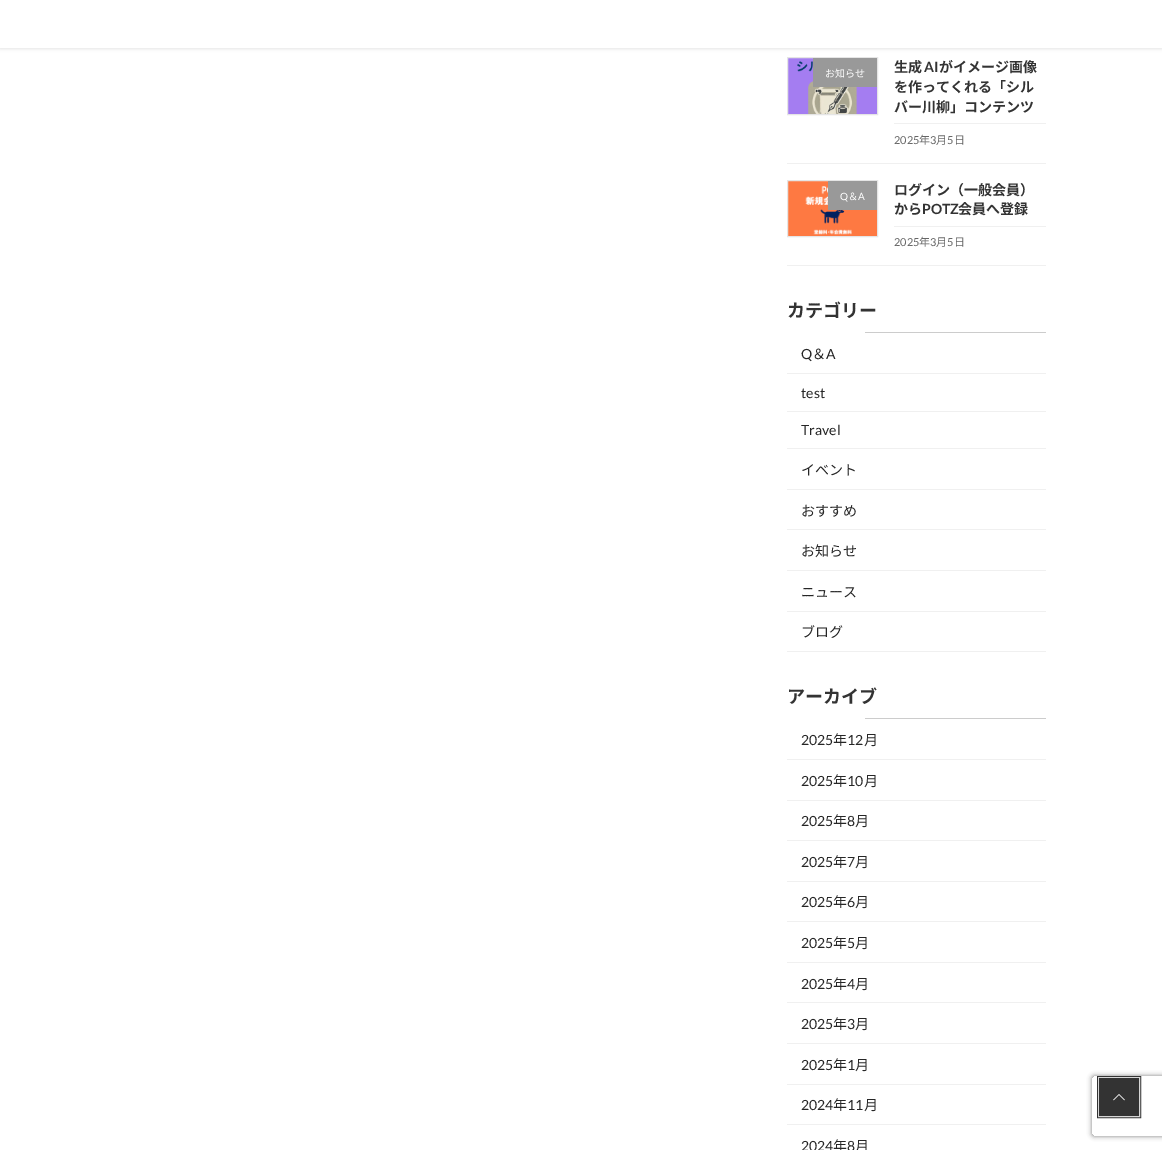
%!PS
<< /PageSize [1162 1150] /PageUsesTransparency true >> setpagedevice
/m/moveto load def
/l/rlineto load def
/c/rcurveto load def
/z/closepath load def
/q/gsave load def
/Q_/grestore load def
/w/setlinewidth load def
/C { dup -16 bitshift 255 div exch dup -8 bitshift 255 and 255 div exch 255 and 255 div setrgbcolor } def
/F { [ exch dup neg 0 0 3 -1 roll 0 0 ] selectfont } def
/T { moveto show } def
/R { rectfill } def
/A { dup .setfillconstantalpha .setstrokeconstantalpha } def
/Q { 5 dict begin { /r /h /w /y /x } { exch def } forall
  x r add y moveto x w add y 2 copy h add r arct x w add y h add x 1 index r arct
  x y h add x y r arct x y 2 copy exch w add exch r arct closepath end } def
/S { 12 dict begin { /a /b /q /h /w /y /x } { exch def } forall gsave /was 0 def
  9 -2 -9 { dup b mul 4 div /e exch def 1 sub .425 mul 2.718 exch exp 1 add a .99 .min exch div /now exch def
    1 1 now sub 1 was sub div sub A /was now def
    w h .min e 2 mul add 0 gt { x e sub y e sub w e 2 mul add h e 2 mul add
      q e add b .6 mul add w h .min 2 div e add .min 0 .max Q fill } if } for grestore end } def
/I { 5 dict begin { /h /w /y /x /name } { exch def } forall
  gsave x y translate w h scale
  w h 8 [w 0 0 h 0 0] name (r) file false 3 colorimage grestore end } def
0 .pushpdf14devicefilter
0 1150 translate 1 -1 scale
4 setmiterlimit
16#FFFFFF C
0 0 1162 1150 R
16#000000 C
0 1 1162 48 0 1.5 .1 S
16#FFFFFF C
0 0 1162 48 R
16#F0F0F0 C
787 163 259 1 R
(1.rgb) 788 58 89 56 I
16#E5E5E5 C
787.5 57.5 90 57 rectstroke
16#999999 C
813 58 64 29 R
/NotoSansJP-Regular 10 F
16#FFFFFF C
(お知らせ) 825 77 T
16#F0F0F0 C
894 123 152 1 R
/NotoSansJP-Bold 14 F
16#333333 C
(生成) 894 72 T
/Lato-Bold 14 F
(AI) 924 72 T
/NotoSansJP-Bold 14 F
(がイメージ画像) 939 72 T
(を作ってくれる「シル) 894 92 T
(バー川柳」コンテンツ) 894 112 T
/Lato-Regular 11 F
16#666666 C
(2025) 894 144 T
/NotoSansJP-Regular 11 F
(年) 919 144 T
/Lato-Regular 11 F
(3) 930 144 T
/NotoSansJP-Regular 11 F
(月) 936 144 T
/Lato-Regular 11 F
(5) 947 144 T
/NotoSansJP-Regular 11 F
(日) 954 144 T
16#F0F0F0 C
787 265 259 1 R
(2.rgb) 788 181 89 55 I
16#E5E5E5 C
787.5 180.5 90 56 rectstroke
16#999999 C
828 181 49 29 R
/Lato-Regular 10 F
16#FFFFFF C
(Q) 840 200 T
/NotoSansJP-Regular 10 F
(＆) 848 200 T
/Lato-Regular 10 F
(A) 858 200 T
16#F0F0F0 C
894 226 152 1 R
/NotoSansJP-Bold 14 F
16#333333 C
(ログイン（一般会員）) 894 195 T
(から) 894 214 T
/Lato-Bold 14 F
(POTZ) 922 214 T
/NotoSansJP-Bold 14 F
(会員へ登録) 958 214 T
/Lato-Regular 11 F
16#666666 C
(2025) 894 246 T
/NotoSansJP-Regular 11 F
(年) 919 246 T
/Lato-Regular 11 F
(3) 930 246 T
/NotoSansJP-Regular 11 F
(月) 936 246 T
/Lato-Regular 11 F
(5) 947 246 T
/NotoSansJP-Regular 11 F
(日) 954 246 T
16#CCCCCC C
865 332 181 1 R
/NotoSansJP-Bold 18 F
16#333333 C
(カテゴリー) 787 317 T
16#F0F0F0 C
787 373 259 1 R
/Lato-Regular 14 F
16#262626 C
(Q) 801 359 T
/NotoSansJP-Regular 14 F
(＆) 812 359 T
/Lato-Regular 14 F
(A) 826 359 T
16#F0F0F0 C
787 411 259 1 R
16#262626 C
(test) 801 398 T
16#F0F0F0 C
787 448 259 1 R
16#262626 C
(Travel) 801 435 T
16#F0F0F0 C
787 489 259 1 R
/NotoSansJP-Regular 14 F
16#262626 C
(イベント) 801 475 T
16#F0F0F0 C
787 529 259 1 R
16#262626 C
(おすすめ) 801 516 T
16#F0F0F0 C
787 570 259 1 R
16#262626 C
(お知らせ) 801 556 T
16#F0F0F0 C
787 611 259 1 R
16#262626 C
(ニュース) 801 597 T
16#F0F0F0 C
787 651 259 1 R
16#262626 C
(ブログ) 801 637 T
16#CCCCCC C
865 718 181 1 R
/NotoSansJP-Bold 18 F
16#333333 C
(アーカイブ) 787 703 T
16#F0F0F0 C
787 759 259 1 R
/Lato-Regular 14 F
16#262626 C
(2025) 801 745 T
/NotoSansJP-Regular 14 F
(年) 833 745 T
/Lato-Regular 14 F
(12) 847 745 T
/NotoSansJP-Regular 14 F
(月) 864 745 T
16#F0F0F0 C
787 800 259 1 R
/Lato-Regular 14 F
16#262626 C
(2025) 801 786 T
/NotoSansJP-Regular 14 F
(年) 833 786 T
/Lato-Regular 14 F
(10) 847 786 T
/NotoSansJP-Regular 14 F
(月) 864 786 T
16#F0F0F0 C
787 840 259 1 R
/Lato-Regular 14 F
16#262626 C
(2025) 801 826 T
/NotoSansJP-Regular 14 F
(年) 833 826 T
/Lato-Regular 14 F
(8) 847 826 T
/NotoSansJP-Regular 14 F
(月) 855 826 T
16#F0F0F0 C
787 881 259 1 R
/Lato-Regular 14 F
16#262626 C
(2025) 801 867 T
/NotoSansJP-Regular 14 F
(年) 833 867 T
/Lato-Regular 14 F
(7) 847 867 T
/NotoSansJP-Regular 14 F
(月) 855 867 T
16#F0F0F0 C
787 921 259 1 R
/Lato-Regular 14 F
16#262626 C
(2025) 801 907 T
/NotoSansJP-Regular 14 F
(年) 833 907 T
/Lato-Regular 14 F
(6) 847 907 T
/NotoSansJP-Regular 14 F
(月) 855 907 T
16#F0F0F0 C
787 962 259 1 R
/Lato-Regular 14 F
16#262626 C
(2025) 801 948 T
/NotoSansJP-Regular 14 F
(年) 833 948 T
/Lato-Regular 14 F
(5) 847 948 T
/NotoSansJP-Regular 14 F
(月) 855 948 T
16#F0F0F0 C
787 1002 259 1 R
/Lato-Regular 14 F
16#262626 C
(2025) 801 989 T
/NotoSansJP-Regular 14 F
(年) 833 989 T
/Lato-Regular 14 F
(4) 847 989 T
/NotoSansJP-Regular 14 F
(月) 855 989 T
16#F0F0F0 C
787 1043 259 1 R
/Lato-Regular 14 F
16#262626 C
(2025) 801 1029 T
/NotoSansJP-Regular 14 F
(年) 833 1029 T
/Lato-Regular 14 F
(3) 847 1029 T
/NotoSansJP-Regular 14 F
(月) 855 1029 T
16#F0F0F0 C
787 1084 259 1 R
/Lato-Regular 14 F
16#262626 C
(2025) 801 1070 T
/NotoSansJP-Regular 14 F
(年) 833 1070 T
/Lato-Regular 14 F
(1) 847 1070 T
/NotoSansJP-Regular 14 F
(月) 855 1070 T
16#F0F0F0 C
787 1124 259 1 R
/Lato-Regular 14 F
16#262626 C
(2024) 801 1110 T
/NotoSansJP-Regular 14 F
(年) 833 1110 T
/Lato-Regular 14 F
(11) 847 1110 T
/NotoSansJP-Regular 14 F
(月) 864 1110 T
/Lato-Regular 14 F
(2024) 801 1151 T
/NotoSansJP-Regular 14 F
(年) 833 1151 T
/Lato-Regular 14 F
(8) 847 1151 T
/NotoSansJP-Regular 14 F
(月) 855 1151 T
q
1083 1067 m 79 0 l 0 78 l -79 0 l z 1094 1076 m 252 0 l 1 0 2 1 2 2 c 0 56 l 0 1 -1 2 -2 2 c -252 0 l -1 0 -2 -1 -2 -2 c 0 -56 l 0 -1 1 -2 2 -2 c z eoclip newpath
16#808080 C
1092 1076 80 60 2 2.5 1 S
Q_
16#333333 C
2 w
1098 1077 42 40 rectstroke
16#D6D6D6 C
1 w
1098.5 1077.5 41 39 rectstroke
16#333333 C
1099 1078 40 38 R
(3.rgb) 1113 1094 12 7 I
.poppdf14devicefilter showpage
